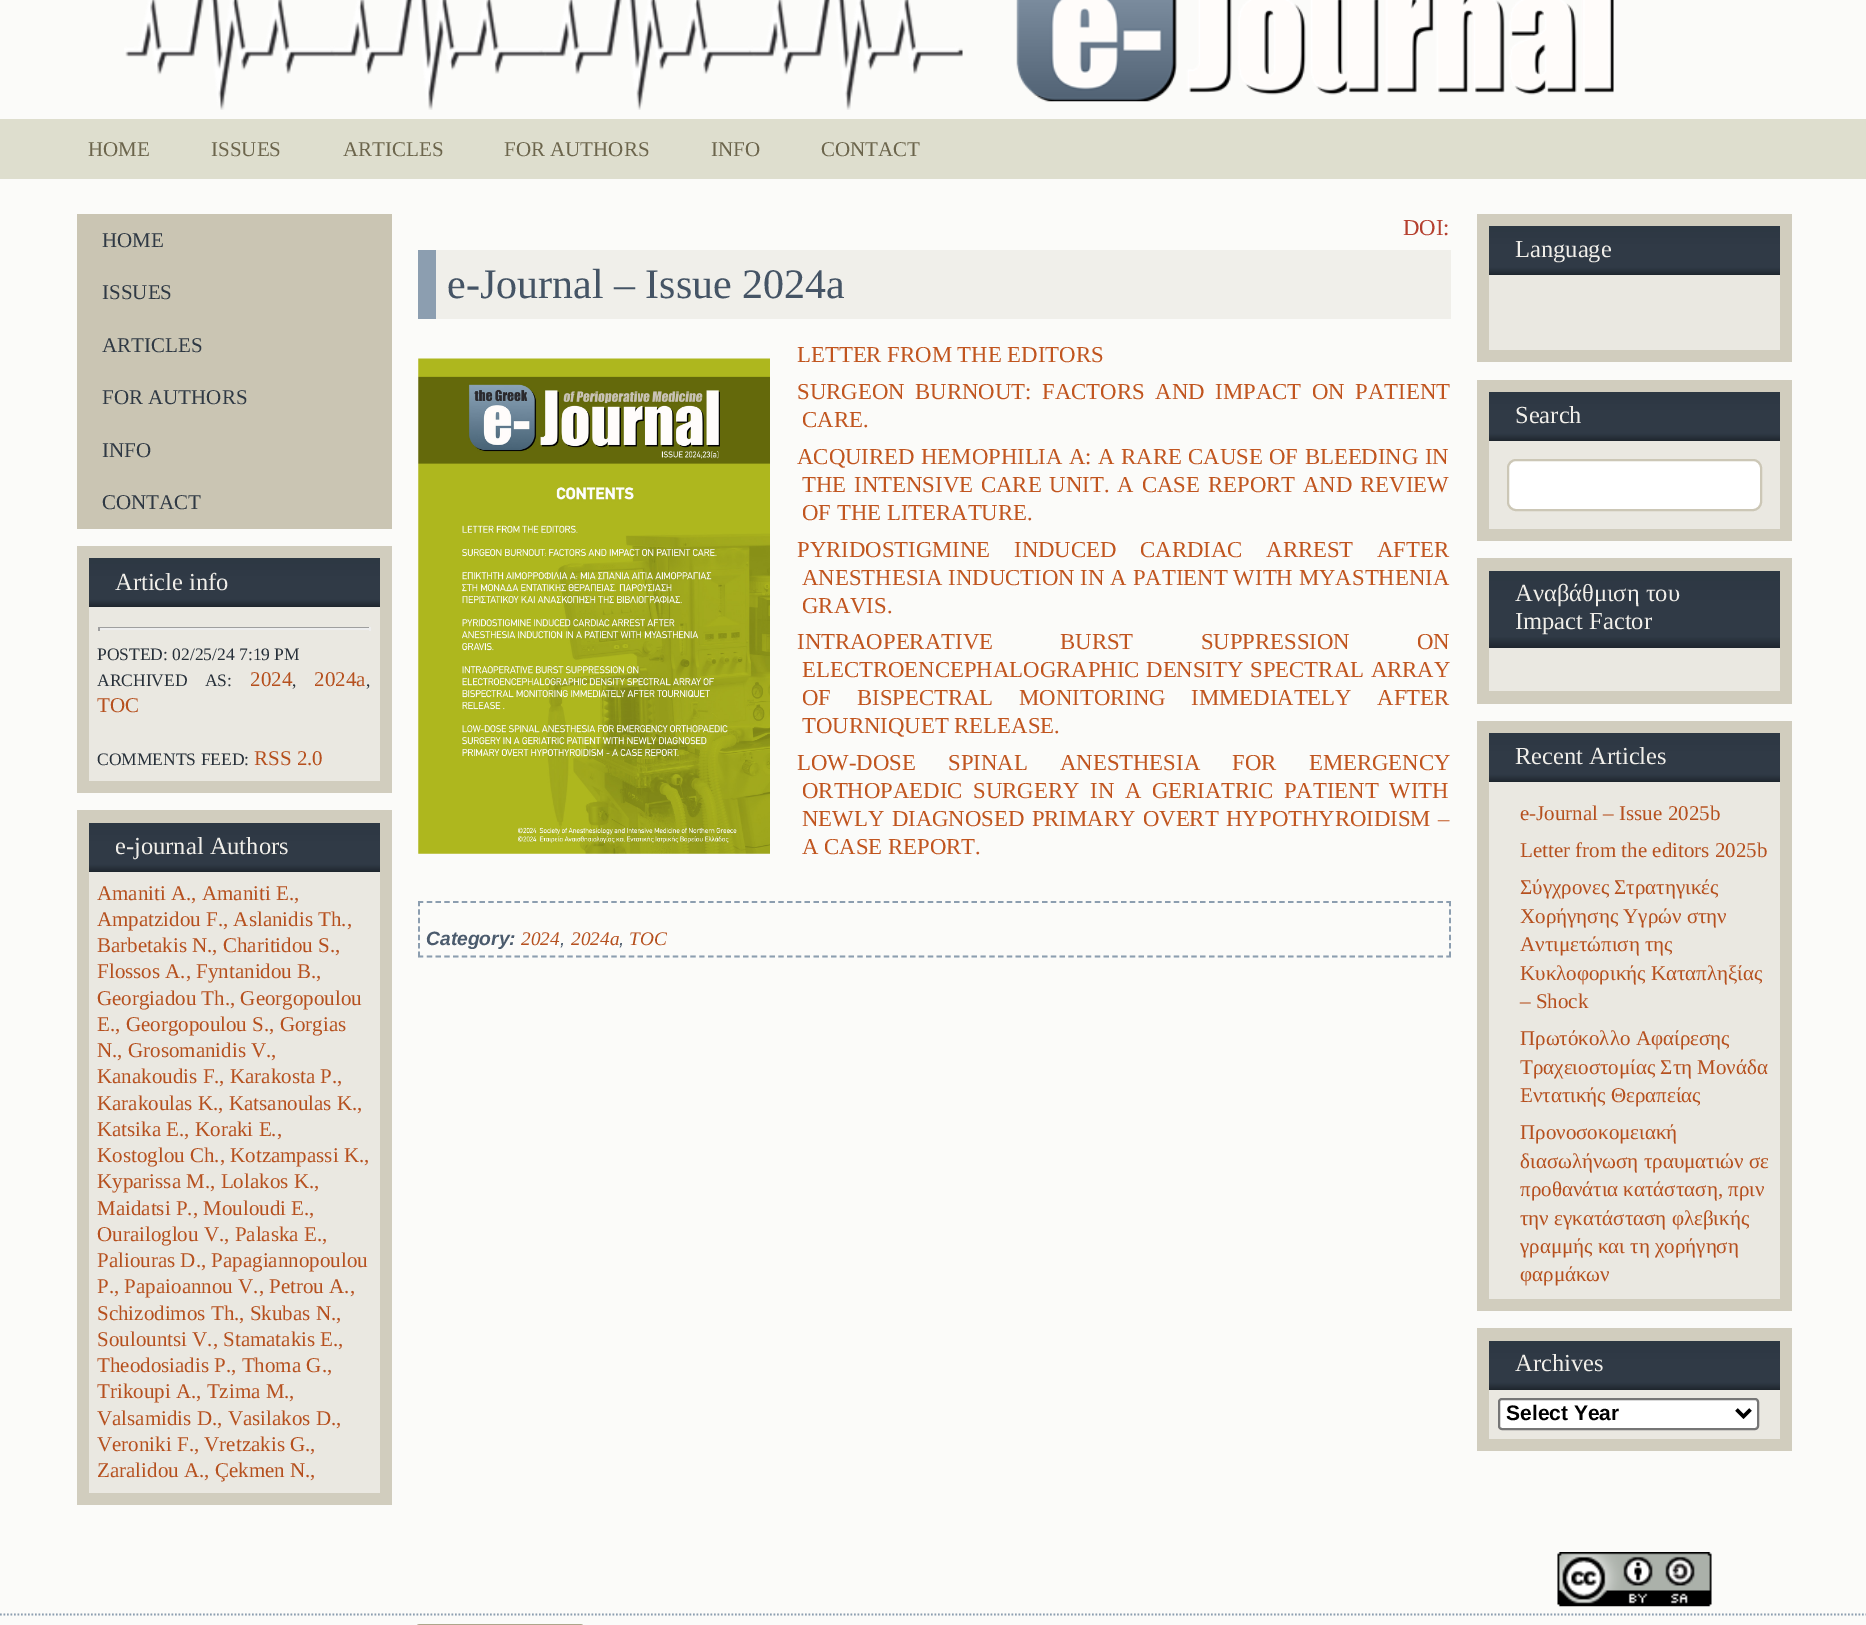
%!PS
<< /PageSize [1866 1625] >> setpagedevice
/m/moveto load def
/l/rlineto load def
/z/closepath load def
/f/fill load def
/s/stroke load def
/q/gsave load def
/Q_/grestore load def
/w/setlinewidth load def
/C { dup -16 bitshift 255 div exch dup -8 bitshift 255 and 255 div exch 255 and 255 div setrgbcolor } def
/F { [ exch dup neg 0 0 3 -1 roll 0 0 ] selectfont } def
/T { moveto show } def
/R { rectfill } def
/Q { 5 dict begin { /r /h /w /y /x } { exch def } forall
  x r add y moveto x w add y 2 copy h add r arct x w add y h add x 1 index r arct
  x y h add x y r arct x y 2 copy exch w add exch r arct closepath end } def
/I { 5 dict begin { /h /w /y /x /name } { exch def } forall
  gsave x y translate w h scale
  w h 8 [w 0 0 h 0 0] name (r) file false 3 colorimage grestore end } def
0 1625 translate 1 -1 scale
4 setmiterlimit
16#FBFBF9 C
0 0 1866 1625 R
16#DEDECE C
0 119 1866 60 R
(1.rgb) 124 0 839 110 I
(2.rgb) 1016 0 598 102 I
/LiberationSerif-Regular 21 F
16#6C654C C
(HOME) 88 156 T
(ISSUES) 211 156 T
(ARTICLES) 343 156 T
(FOR AUTHORS) 504 156 T
(INFO) 711 156 T
(CONTACT) 821 156 T
16#CAC5B3 C
77 214 315 315 R
16#2F3944 C
(HOME) 102 247 T
(ISSUES) 102 299 T
(ARTICLES) 102 352 T
(FOR AUTHORS) 102 404 T
(INFO) 102 457 T
(CONTACT) 102 509 T
16#D1CDBE C
77 546 315 247 R
q 89 558 m 291 0 l 0 49 l -291 0 l z clip newpath
<< /ShadingType 2 /ColorSpace /DeviceRGB /Coords [235 558 235 607] /Extend [true true] /Function << /FunctionType 3 /Domain [0 1] /Functions [<< /FunctionType 2 /Domain [0 1] /C0 [.176 .22 .263] /C1 [.188 .227 .275] /N 1 >> << /FunctionType 2 /Domain [0 1] /C0 [.188 .227 .275] /C1 [.188 .227 .275] /N 1 >> << /FunctionType 2 /Domain [0 1] /C0 [.188 .227 .275] /C1 [.122 .149 .18] /N 1 >>] /Bounds [.4 .85] /Encode [0 1 0 1 0 1] >> >> shfill Q_
/LiberationSerif-Regular 24.5 F
16#F0EEE9 C
(Article info) 115 590 T
16#EAE8E1 C
89 607 291 174 R
16#9F9F9F C
98 627 273 1 R
16#EEEEEE C
369 627 2 4 R
98 628 273 2 R
16#9F9F9F C
98 627 2 4 R
/LiberationSerif-Regular 17.5 F
16#273039 C
(POSTED: 02/25/24 7:19 PM) 97 660 T
97 686 m 13 0 32 (ARCHIVED AS:) widthshow
/LiberationSerif-Regular 21 F
16#B6501E C
(2024) 250 686 T
/LiberationSerif-Regular 17.5 F
16#273039 C
(,) 292 686 T
/LiberationSerif-Regular 21 F
16#B6501E C
(2024a) 314 686 T
/LiberationSerif-Regular 17.5 F
16#273039 C
(,) 366 686 T
/LiberationSerif-Regular 21 F
16#B6501E C
(TOC) 97 712 T
/LiberationSerif-Regular 17.5 F
16#273039 C
(COMMENTS FEED:) 97 765 T
/LiberationSerif-Regular 21 F
16#B6501E C
(RSS 2.0) 254 765 T
16#D1CDBE C
77 810 315 695 R
q 89 823 m 291 0 l 0 49 l -291 0 l z clip newpath
<< /ShadingType 2 /ColorSpace /DeviceRGB /Coords [235 823 235 872] /Extend [true true] /Function << /FunctionType 3 /Domain [0 1] /Functions [<< /FunctionType 2 /Domain [0 1] /C0 [.176 .22 .263] /C1 [.188 .227 .275] /N 1 >> << /FunctionType 2 /Domain [0 1] /C0 [.188 .227 .275] /C1 [.188 .227 .275] /N 1 >> << /FunctionType 2 /Domain [0 1] /C0 [.188 .227 .275] /C1 [.122 .149 .18] /N 1 >>] /Bounds [.4 .85] /Encode [0 1 0 1 0 1] >> >> shfill Q_
/LiberationSerif-Regular 24.5 F
16#F0EEE9 C
(e-journal Authors) 115 854 T
16#EAE8E1 C
89 872 291 621 R
/LiberationSerif-Regular 21 F
16#B6501E C
(Amaniti A., Amaniti E.,) 97 900 T
(Ampatzidou F., Aslanidis Th.,) 97 926 T
(Barbetakis N., Charitidou S.,) 97 952 T
(Flossos A., Fyntanidou B.,) 97 978 T
(Georgiadou Th., Georgopoulou) 97 1005 T
(E., Georgopoulou S., Gorgias) 97 1031 T
(N., Grosomanidis V.,) 97 1057 T
(Kanakoudis F., Karakosta P.,) 97 1083 T
(Karakoulas K., Katsanoulas K.,) 97 1110 T
(Katsika E., Koraki E.,) 97 1136 T
(Kostoglou Ch., Kotzampassi K.,) 97 1162 T
(Kyparissa M., Lolakos K.,) 97 1188 T
(Maidatsi P., Mouloudi E.,) 97 1215 T
(Ourailoglou V., Palaska E.,) 97 1241 T
(Paliouras D., Papagiannopoulou) 97 1267 T
(P., Papaioannou V., Petrou A.,) 97 1293 T
(Schizodimos Th., Skubas N.,) 97 1320 T
(Soulountsi V., Stamatakis E.,) 97 1346 T
(Theodosiadis P., Thoma G.,) 97 1372 T
(Trikoupi A., Tzima M.,) 97 1398 T
(Valsamidis D., Vasilakos D.,) 97 1425 T
(Veroniki F., Vretzakis G.,) 97 1451 T
(Zaralidou A., Çekmen N.,) 97 1477 T
/LiberationSerif-Regular 22.75 F
16#B5402F C
(DOI:) 1403 235 T
16#F0EFEA C
436 250 1015 69 R
16#8C9EB0 C
418 250 18 69 R
/LiberationSerif-Regular 42 F
16#455465 C
(e-Journal – Issue 2024a) 447 298 T
(3.rgb) 418 358 352 496 I
/LiberationSerif-Regular 22.75 F
16#C1551F C
(LETTER FROM THE EDITORS) 797 362 T
797 399 m 5 0 32 (SURGEON BURNOUT: FACTORS AND IMPACT ON PATIENT) widthshow
(CARE.) 802 427 T
797 464 m .75 0 32 (ACQUIRED HEMOPHILIA A: A RARE CAUSE OF BLEEDING IN) widthshow
802 492 m 2.25 0 32 (THE INTENSIVE CARE UNIT. A CASE REPORT AND REVIEW) widthshow
(OF THE LITERATURE.) 802 520 T
797 557 m 18 0 32 (PYRIDOSTIGMINE INDUCED CARDIAC ARREST AFTER) widthshow
802 585 m .25 0 32 (ANESTHESIA INDUCTION IN A PATIENT WITH MYASTHENIA) widthshow
(GRAVIS.) 802 613 T
797 649 m 61.5 0 32 (INTRAOPERATIVE BURST SUPPRESSION ON) widthshow
802 677 m 1 0 32 (ELECTROENCEPHALOGRAPHIC DENSITY SPECTRAL ARRAY) widthshow
802 705 m 20 0 32 (OF BISPECTRAL MONITORING IMMEDIATELY AFTER) widthshow
(TOURNIQUET RELEASE.) 802 733 T
797 770 m 26.5 0 32 (LOW-DOSE SPINAL ANESTHESIA FOR EMERGENCY) widthshow
802 798 m 5 0 32 (ORTHOPAEDIC SURGERY IN A GERIATRIC PATIENT WITH) widthshow
802 826 m 1.75 0 32 (NEWLY DIAGNOSED PRIMARY OVERT HYPOTHYROIDISM –) widthshow
(A CASE REPORT.) 802 854 T
16#8C9EB0 C
1.8 w
[5.25 3.54] 0 setdash
418 902 m 1033 0 l s
[5.25 3.2] 0 setdash
1450 901 m 0 56 l s
[5.25 3.54] 0 setdash
418 956.5 m 1033 0 l s
[5.25 3.2] 0 setdash
419 901 m 0 56 l s
/LiberationSans-BoldItalic 19.25 F
16#4B5B6D C
(Category:) 426 945 T
/LiberationSerif-Italic 19.25 F
16#B6501E C
(2024) 521 945 T
/LiberationSans-Italic 19.25 F
16#4B5B6D C
(,) 560 945 T
/LiberationSerif-Italic 19.25 F
16#B6501E C
(2024a) 571 945 T
/LiberationSans-Italic 19.25 F
16#4B5B6D C
(,) 619 945 T
/LiberationSerif-Italic 19.25 F
16#B6501E C
(TOC) 629 945 T
16#D1CDBE C
1477 214 315 148 R
q 1489 226 m 291 0 l 0 49 l -291 0 l z clip newpath
<< /ShadingType 2 /ColorSpace /DeviceRGB /Coords [1635 226 1635 275] /Extend [true true] /Function << /FunctionType 3 /Domain [0 1] /Functions [<< /FunctionType 2 /Domain [0 1] /C0 [.176 .22 .263] /C1 [.188 .227 .275] /N 1 >> << /FunctionType 2 /Domain [0 1] /C0 [.188 .227 .275] /C1 [.188 .227 .275] /N 1 >> << /FunctionType 2 /Domain [0 1] /C0 [.188 .227 .275] /C1 [.122 .149 .18] /N 1 >>] /Bounds [.4 .85] /Encode [0 1 0 1 0 1] >> >> shfill Q_
/LiberationSerif-Regular 24.5 F
16#F0EEE9 C
(Language) 1515 257 T
16#EAE8E1 C
1489 275 291 75 R
16#D1CDBE C
1477 380 315 161 R
q 1489 392 m 291 0 l 0 49 l -291 0 l z clip newpath
<< /ShadingType 2 /ColorSpace /DeviceRGB /Coords [1635 392 1635 441] /Extend [true true] /Function << /FunctionType 3 /Domain [0 1] /Functions [<< /FunctionType 2 /Domain [0 1] /C0 [.176 .22 .263] /C1 [.188 .227 .275] /N 1 >> << /FunctionType 2 /Domain [0 1] /C0 [.188 .227 .275] /C1 [.188 .227 .275] /N 1 >> << /FunctionType 2 /Domain [0 1] /C0 [.188 .227 .275] /C1 [.122 .149 .18] /N 1 >>] /Bounds [.4 .85] /Encode [0 1 0 1 0 1] >> >> shfill Q_
16#F0EEE9 C
(Search) 1515 423 T
16#EAE8E1 C
1489 441 291 88 R
16#FFFFFF C
1508 460 253 50 8 Q q f Q_
16#CCC7B6 C
2 w
[] 0 setdash
s
16#D1CDBE C
1477 558 315 146 R
q 1489 571 m 291 0 l 0 77 l -291 0 l z clip newpath
<< /ShadingType 2 /ColorSpace /DeviceRGB /Coords [1635 571 1635 648] /Extend [true true] /Function << /FunctionType 3 /Domain [0 1] /Functions [<< /FunctionType 2 /Domain [0 1] /C0 [.176 .22 .263] /C1 [.188 .227 .275] /N 1 >> << /FunctionType 2 /Domain [0 1] /C0 [.188 .227 .275] /C1 [.188 .227 .275] /N 1 >> << /FunctionType 2 /Domain [0 1] /C0 [.188 .227 .275] /C1 [.122 .149 .18] /N 1 >>] /Bounds [.4 .85] /Encode [0 1 0 1 0 1] >> >> shfill Q_
16#F0EEE9 C
(Αναβάθμιση του) 1515 601 T
(Impact Factor) 1515 629 T
16#EAE8E1 C
1489 648 291 43 R
16#D1CDBE C
1477 721 315 590 R
q 1489 733 m 291 0 l 0 49 l -291 0 l z clip newpath
<< /ShadingType 2 /ColorSpace /DeviceRGB /Coords [1635 733 1635 782] /Extend [true true] /Function << /FunctionType 3 /Domain [0 1] /Functions [<< /FunctionType 2 /Domain [0 1] /C0 [.176 .22 .263] /C1 [.188 .227 .275] /N 1 >> << /FunctionType 2 /Domain [0 1] /C0 [.188 .227 .275] /C1 [.188 .227 .275] /N 1 >> << /FunctionType 2 /Domain [0 1] /C0 [.188 .227 .275] /C1 [.122 .149 .18] /N 1 >>] /Bounds [.4 .85] /Encode [0 1 0 1 0 1] >> >> shfill Q_
16#F0EEE9 C
(Recent Articles) 1515 764 T
16#EAE8E1 C
1489 782 291 517 R
/LiberationSerif-Regular 21 F
16#B6501E C
(e-Journal – Issue 2025b) 1520 820 T
(Letter from the editors 2025b) 1520 857 T
(Σύγχρονες Στρατηγικές) 1520 894 T
(Χορήγησης Υγρών στην) 1520 923 T
(Αντιμετώπιση της) 1520 951 T
(Κυκλοφορικής Καταπληξίας) 1520 980 T
(– Shock) 1520 1008 T
(Πρωτόκολλο Αφαίρεσης) 1520 1045 T
(Τραχειοστομίας Στη Μονάδα) 1520 1074 T
(Εντατικής Θεραπείας) 1520 1102 T
(Προνοσοκομειακή) 1520 1139 T
(διασωλήνωση τραυματιών σε) 1520 1168 T
(προθανάτια κατάσταση, πριν) 1520 1196 T
(την εγκατάσταση φλεβικής) 1520 1225 T
(γραμμής και τη χορήγηση) 1520 1253 T
(φαρμάκων) 1520 1281 T
16#D1CDBE C
1477 1328 315 123 R
q 1489 1341 m 291 0 l 0 49 l -291 0 l z clip newpath
<< /ShadingType 2 /ColorSpace /DeviceRGB /Coords [1635 1341 1635 1390] /Extend [true true] /Function << /FunctionType 3 /Domain [0 1] /Functions [<< /FunctionType 2 /Domain [0 1] /C0 [.176 .22 .263] /C1 [.188 .227 .275] /N 1 >> << /FunctionType 2 /Domain [0 1] /C0 [.188 .227 .275] /C1 [.188 .227 .275] /N 1 >> << /FunctionType 2 /Domain [0 1] /C0 [.188 .227 .275] /C1 [.122 .149 .18] /N 1 >>] /Bounds [.4 .85] /Encode [0 1 0 1 0 1] >> >> shfill Q_
/LiberationSerif-Regular 24.5 F
16#F0EEE9 C
(Archives) 1515 1371 T
16#EAE8E1 C
1489 1390 291 49 R
16#FFFFFF C
1499 1399 259 30 3 Q q f Q_
16#767676 C
s
16#000000 C
3.5 w
1736.5 1409.5 m 7 7 l 7 -7 l s
/LiberationSans-Bold 21 F
(Select Year) 1506 1420 T
(4.rgb) 1557 1552 155 55 I
16#8C9EB0 C
1.8 w
[1.75 1.75] 0 setdash
0 1614.5 m 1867 0 l s
16#ADA68B C
415 1624 170 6 5 Q f
showpage
